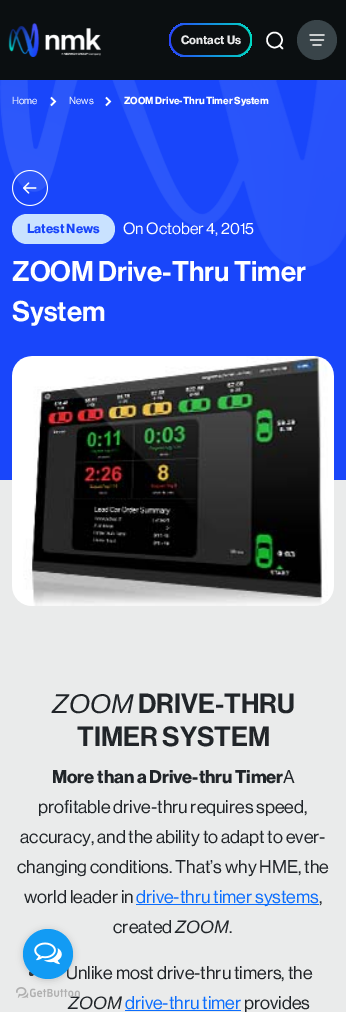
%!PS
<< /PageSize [346 1012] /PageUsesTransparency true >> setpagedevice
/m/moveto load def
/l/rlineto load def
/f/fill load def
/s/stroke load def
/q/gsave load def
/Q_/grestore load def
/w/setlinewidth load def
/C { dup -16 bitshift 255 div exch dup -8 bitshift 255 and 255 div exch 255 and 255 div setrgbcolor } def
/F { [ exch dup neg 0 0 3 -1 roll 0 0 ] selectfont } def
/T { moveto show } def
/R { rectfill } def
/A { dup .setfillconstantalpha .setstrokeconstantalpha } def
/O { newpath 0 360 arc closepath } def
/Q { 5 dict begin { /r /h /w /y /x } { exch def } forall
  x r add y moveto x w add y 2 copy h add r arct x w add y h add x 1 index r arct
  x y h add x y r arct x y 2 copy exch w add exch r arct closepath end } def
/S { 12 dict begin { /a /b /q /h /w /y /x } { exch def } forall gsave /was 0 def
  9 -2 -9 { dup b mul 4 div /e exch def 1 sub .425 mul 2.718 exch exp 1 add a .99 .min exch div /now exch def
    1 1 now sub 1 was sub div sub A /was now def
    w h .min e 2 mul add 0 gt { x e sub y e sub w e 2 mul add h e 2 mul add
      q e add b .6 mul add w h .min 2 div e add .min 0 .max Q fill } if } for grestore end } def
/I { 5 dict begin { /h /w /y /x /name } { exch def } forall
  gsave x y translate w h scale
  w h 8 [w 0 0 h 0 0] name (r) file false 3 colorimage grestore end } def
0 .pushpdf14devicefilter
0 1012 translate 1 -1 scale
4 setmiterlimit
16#EAEBEB C
0 0 346 1012 R
16#0B0F11 C
0 0 346 80 R
(1.rgb) 8 23 93 34 I
q 169 23 83 34 17 Q clip newpath
<< /ShadingType 2 /ColorSpace /DeviceRGB /Coords [169 40 252 40] /Extend [true true] /Function << /FunctionType 2 /Domain [0 1] /C0 [.165 .271 .984] /C1 [.004 .847 .765] /N 1 >> >> shfill Q_
171 25 79 30 15 Q f
/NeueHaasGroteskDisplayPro-Bold 12 F
16#EAEBEB C
(Contact Us) 181 44 T
16#FFFFFF C
1.5 w
274.5 40 7.5 O s
1 setlinecap
1 setlinejoin
279.5 45.5 m 3 3 l s
16#394449 C
317 40 20 O f
(2.rgb) 309 34 16 12 I
16#1946FA C
0 80 346 400 R
(3.rgb) 0 80 346 187 I
/NeueHaasGroteskDisplayPro-Regular 10 F
16#FFFFFF C
(Home) 12 104 T
0 setlinecap
0 setlinejoin
51 105.5 m 4 -4 l -4 -4 l s
(News) 69 104 T
106 105.5 m 4 -4 l -4 -4 l s
/NeueHaasGroteskDisplayPro-Bold 10 F
(ZOOM Drive-Thru Timer System) 124 104 T
(4.rgb) 12 170 36 36 I
16#C9E2FF C
12 214 103 30 15 Q f
/NeueHaasGroteskDisplayPro-Bold 13 F
16#1946FA C
(Latest News) 27 233 T
/NeueHaasGroteskDisplayPro-Regular 16 F
16#FFFFFF C
(On October 4, 2015) 123 234 T
/NeueHaasGroteskDisplayPro-SemiBold 28 F
(ZOOM Drive-Thru Timer) 12 281 T
(System) 12 321 T
(5.rgb) 12 356 322 250 I
/LiberationSans-Italic 27.25 F
16#212529 C
(ZOOM) 52 713 T
/NeueHaasGroteskDisplayPro-SemiBold 27.25 F
(DRIVE-THRU) 138 713 T
(TIMER SYSTEM) 77 746 T
/NeueHaasGroteskDisplayPro-Bold 18 F
(More than a Drive-thru Timer) 52 783 T
/NeueHaasGroteskDisplayPro-Regular 18 F
(A) 283 783 T
(profitable drive-thru requires speed,) 38 813 T
(accuracy, and the ability to adapt to ever-) 20 843 T
(changing conditions. That’s why HME, the) 17 873 T
(world leader in) 24 903 T
16#0D6EFD C
136 904 183 1 R
(drive-thru timer systems) 136 903 T
16#212529 C
(,) 319 903 T
(created) 113 933 T
/LiberationSans-Italic 18 F
(ZOOM) 175 933 T
/NeueHaasGroteskDisplayPro-Regular 18 F
(.) 229 933 T
31.5 973.5 2.5 O f
(Unlike most drive-thru timers, the) 66 979 T
/LiberationSans-Italic 18 F
(ZOOM) 68 1009 T
/NeueHaasGroteskDisplayPro-Regular 18 F
16#0D6EFD C
(drive-thru timer) 125 1009 T
125 1010 116 1 R
16#212529 C
(provides) 244 1009 T
(7.rgb) 16 987 64 11 I
16#888888 C
23 930 50 50 25 3.5 .4 S
16#129BF4 C
48 954 25 O f
(6.rgb) 34 942 28 23 I
.poppdf14devicefilter showpage
